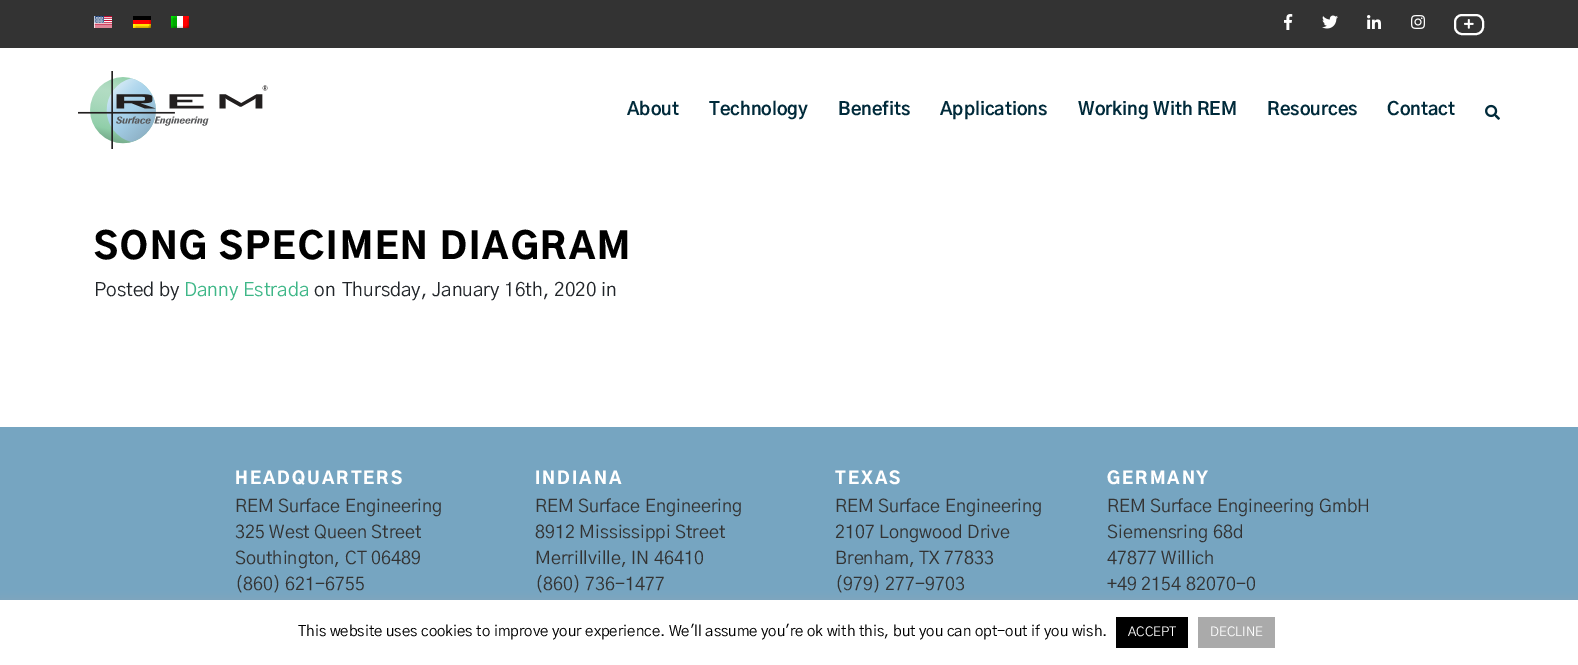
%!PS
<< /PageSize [1578 665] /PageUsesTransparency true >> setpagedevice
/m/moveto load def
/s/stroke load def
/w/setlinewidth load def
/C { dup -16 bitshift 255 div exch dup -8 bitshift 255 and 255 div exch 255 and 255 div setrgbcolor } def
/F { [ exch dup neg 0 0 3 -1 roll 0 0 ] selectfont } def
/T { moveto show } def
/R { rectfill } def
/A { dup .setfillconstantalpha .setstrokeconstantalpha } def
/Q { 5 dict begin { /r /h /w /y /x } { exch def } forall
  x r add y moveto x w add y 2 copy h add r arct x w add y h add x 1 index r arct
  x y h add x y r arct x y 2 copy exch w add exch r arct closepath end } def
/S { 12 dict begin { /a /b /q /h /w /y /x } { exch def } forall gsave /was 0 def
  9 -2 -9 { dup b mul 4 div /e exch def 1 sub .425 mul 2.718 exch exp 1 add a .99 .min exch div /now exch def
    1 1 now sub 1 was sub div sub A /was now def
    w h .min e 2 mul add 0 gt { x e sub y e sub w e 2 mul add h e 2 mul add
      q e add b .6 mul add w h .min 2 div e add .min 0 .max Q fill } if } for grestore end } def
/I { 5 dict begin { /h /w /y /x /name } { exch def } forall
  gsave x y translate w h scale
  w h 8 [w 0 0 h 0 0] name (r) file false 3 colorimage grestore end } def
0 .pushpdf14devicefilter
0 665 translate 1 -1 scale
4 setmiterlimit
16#FFFFFF C
0 0 1578 665 R
16#333333 C
0 0 1578 48 R
(1.rgb) 94 16 18 12 I
(2.rgb) 133 16 18 12 I
(3.rgb) 171 16 18 12 I
(4.rgb) 1284 14 9 16 I
(5.rgb) 1322 15 16 14 I
(6.rgb) 1367 15 14 14 I
(7.rgb) 1411 15 14 14 I
16#FFFFFF C
2 w
1455 15 28 19 7 Q s
(8.rgb) 1464 19 10 10 I
(9.rgb) 78 71 190 78 I
/GothicA1-Bold 18 F
16#002A3A C
(About) 627 115 T
(Technology) 709 115 T
(Benefits) 838 115 T
(Applications) 940 115 T
(Working With REM) 1078 115 T
(Resources) 1267 115 T
(Contact) 1387 115 T
(10.rgb) 1485 104 15 16 I
/GothicA1-Black 36 F
16#000000 C
94 259 m 2 0 (SONG SPECIMEN DIAGRAM) ashow
/GothicA1-Regular 19 F
16#212529 C
(Posted by) 94 296 T
16#3FB788 C
(Danny Estrada) 184 296 T
16#212529 C
(on) 314 296 T
(Thursday, January 16th, 2020 in) 342 296 T
16#76A5C1 C
0 427 1578 173 R
/GothicA1-Black 17 F
16#FFFFFF C
235 484 m 2 0 (HEADQUARTERS) ashow
/GothicA1-Regular 18 F
16#333333 C
(REM Surface Engineering) 235 512 T
(325 West Queen Street) 235 538 T
(Southington, CT 06489) 235 564 T
(\(860\) 621-6755) 235 590 T
/GothicA1-Black 17 F
16#FFFFFF C
535 484 m 2 0 (INDIANA) ashow
/GothicA1-Regular 18 F
16#333333 C
(REM Surface Engineering) 535 512 T
(8912 Mississippi Street) 535 538 T
(Merrillville, IN 46410) 535 564 T
(\(860\) 736-1477) 535 590 T
/GothicA1-Black 17 F
16#FFFFFF C
835 484 m 2 0 (TEXAS) ashow
/GothicA1-Regular 18 F
16#333333 C
(REM Surface Engineering) 835 512 T
(2107 Longwood Drive) 835 538 T
(Brenham, TX 77833) 835 564 T
(\(979\) 277-9703) 835 590 T
/GothicA1-Black 17 F
16#FFFFFF C
1107 484 m 2 0 (GERMANY) ashow
/GothicA1-Regular 18 F
16#333333 C
(REM Surface Engineering GmbH) 1107 512 T
(Siemensring 68d) 1107 538 T
(47877 Willich) 1107 564 T
(+49 2154 82070-0) 1107 590 T
16#ACABAB C
0 599 1578 65 0 5 .3 S
16#FFFFFF C
0 600 1578 65 R
/GothicA1-Regular 15 F
16#000000 C
(This website uses cookies to improve your experience. We'll assume you're ok with this, but you can opt-out if you wish.) 298 636 T
1116 617 72 31 R
/GothicA1-Regular 13 F
16#FFFFFF C
(ACCEPT) 1128 636 T
16#AAAAAA C
1198 617 77 31 R
16#FFFFFF C
(DECLINE) 1210 636 T
.poppdf14devicefilter showpage
